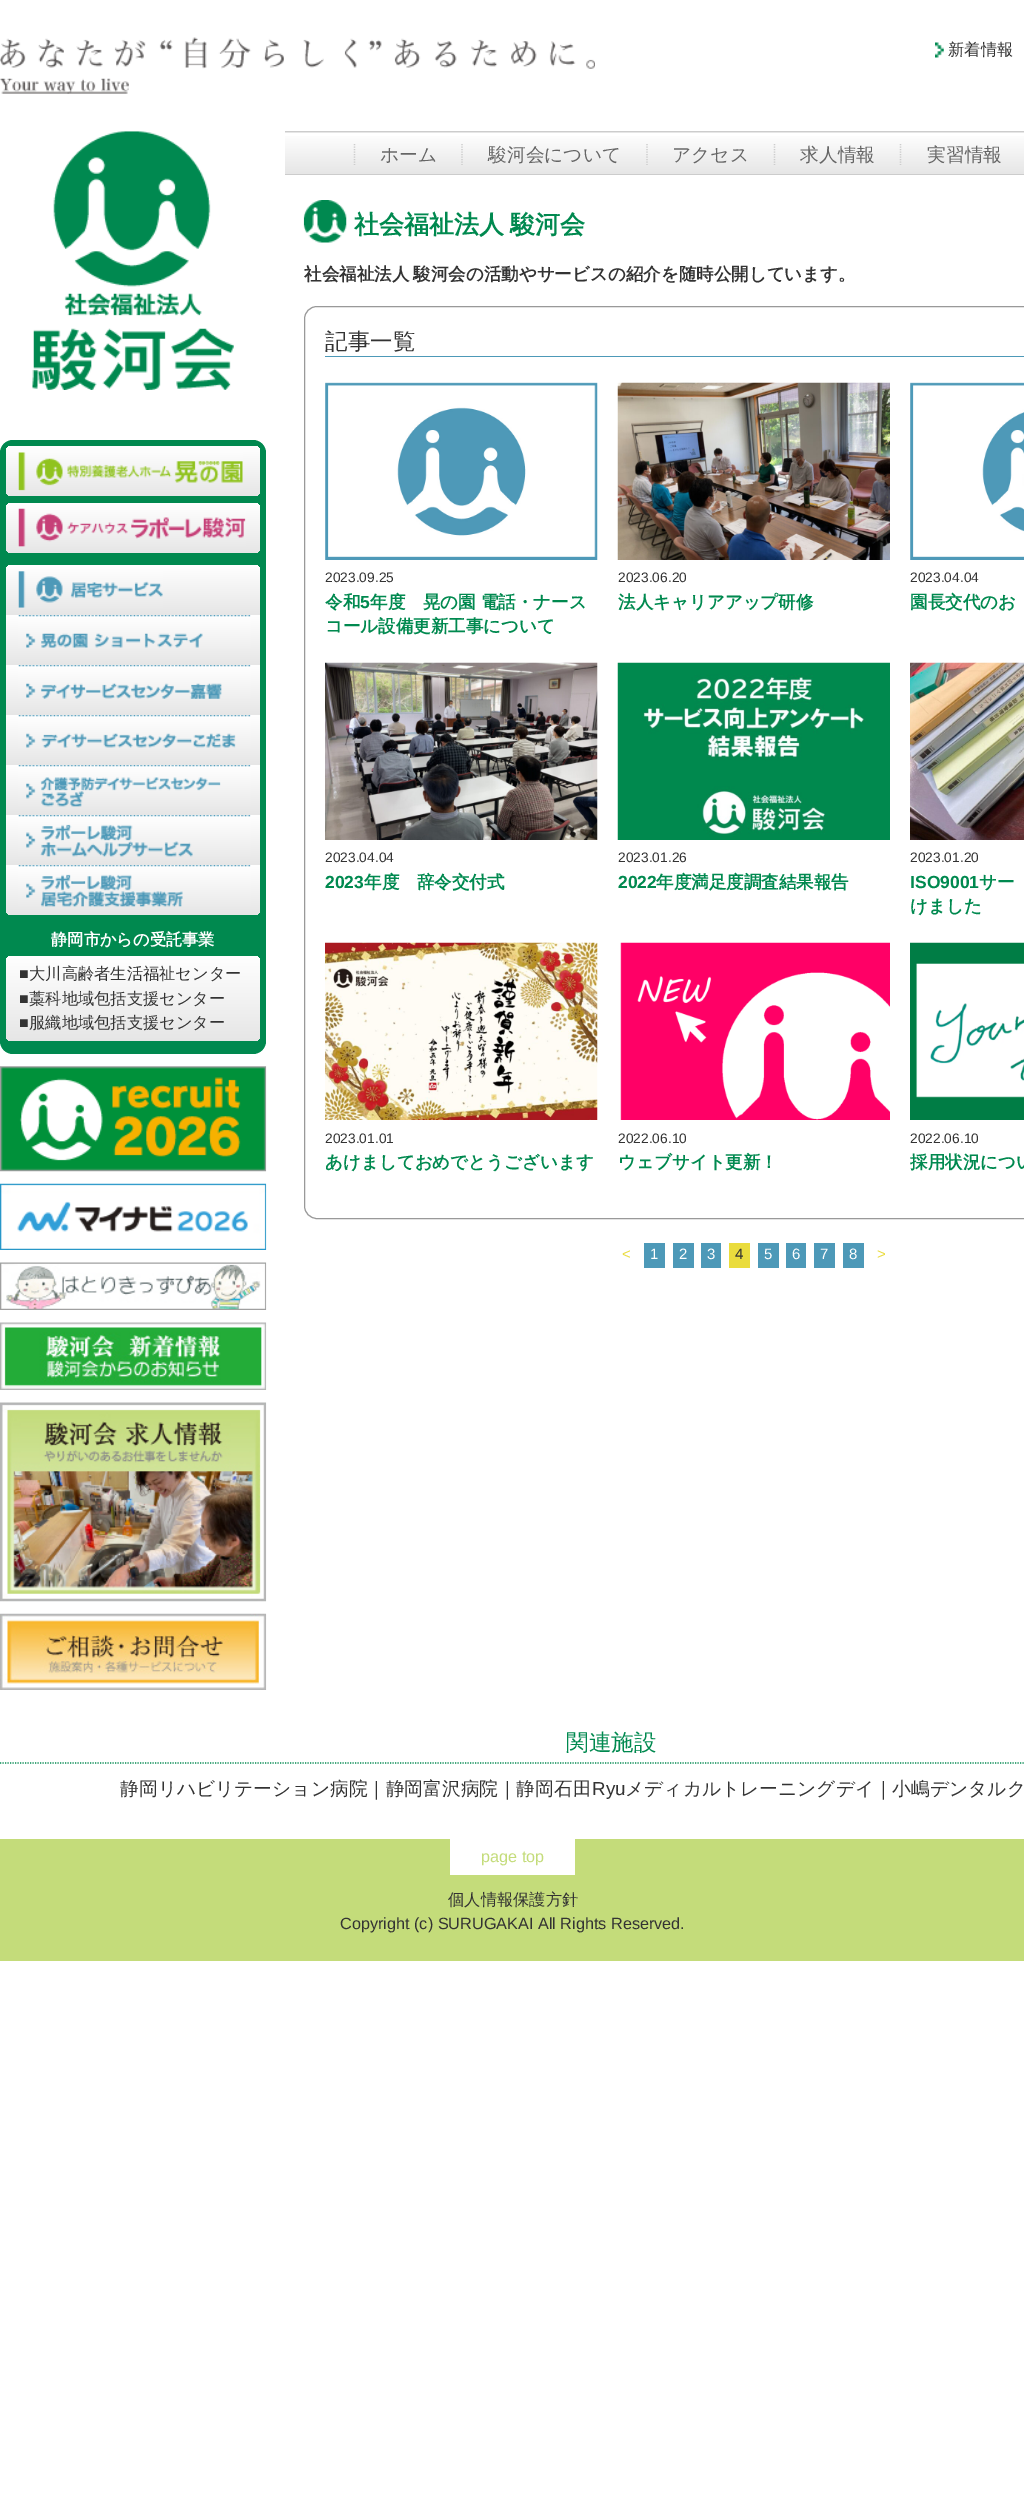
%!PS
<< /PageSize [1024 2511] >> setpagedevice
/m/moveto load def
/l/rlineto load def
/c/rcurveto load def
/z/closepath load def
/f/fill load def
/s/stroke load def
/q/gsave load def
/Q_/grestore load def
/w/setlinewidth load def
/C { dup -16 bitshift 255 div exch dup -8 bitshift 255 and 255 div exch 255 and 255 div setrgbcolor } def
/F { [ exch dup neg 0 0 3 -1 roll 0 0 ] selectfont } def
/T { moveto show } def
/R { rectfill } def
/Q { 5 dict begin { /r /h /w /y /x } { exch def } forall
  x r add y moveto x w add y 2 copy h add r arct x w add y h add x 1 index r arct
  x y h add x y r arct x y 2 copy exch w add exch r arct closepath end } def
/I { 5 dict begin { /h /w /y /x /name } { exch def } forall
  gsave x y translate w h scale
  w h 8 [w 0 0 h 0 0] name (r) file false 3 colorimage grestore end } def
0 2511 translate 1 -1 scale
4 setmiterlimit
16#FFFFFF C
0 0 1024 2511 R
(1.rgb) 0 37 595 57 I
(2.rgb) 935 42 9 16 I
/WenQuanYiZenHei-Medium 16.25 F
16#333333 C
(新着情報) 948 55 T
q 285 132 m 739 0 l 0 1 l -739 0 l z clip newpath
<< /ShadingType 2 /ColorSpace /DeviceRGB /Coords [754 91 754 133] /Extend [true true] /Function << /FunctionType 2 /Domain [0 1] /C0 [1 1 1] /C1 [.902 .902 .902] /N 1 >> >> shfill Q_
q 285 136 m 739 0 l 0 38 l -739 0 l z clip newpath
<< /ShadingType 2 /ColorSpace /DeviceRGB /Coords [754 132 754 174] /Extend [true true] /Function << /FunctionType 2 /Domain [0 1] /C0 [1 1 1] /C1 [.902 .902 .902] /N 1 >> >> shfill Q_
16#CCCCCC C
285 131 739 1 R
285 174 739 1 R
/WenQuanYiZenHei-Medium 18.75 F
16#666666 C
(ホーム) 380 161 T
16#CCCCCC C
1.2 w
[1.25 1.25] 0 setdash
354.5 144 m 0 21 l s
16#666666 C
(駿河会について) 488 161 T
16#CCCCCC C
462 144 m 0 21 l s
16#666666 C
(アクセス) 672 161 T
16#CCCCCC C
647 144 m 0 21 l s
16#666666 C
(求人情報) 800 161 T
16#CCCCCC C
774.5 144 m 0 21 l s
16#666666 C
(実習情報) 927 161 T
16#CCCCCC C
900.5 144 m 0 21 l s
(3.rgb) 32 131 202 259 I
16#00894F C
0 440 266 614 13 Q f
q 6 446 254 50 6 Q clip newpath
<< /ShadingType 2 /ColorSpace /DeviceRGB /Coords [133 446 133 496] /Extend [true true] /Function << /FunctionType 2 /Domain [0 1] /C0 [1 1 1] /C1 [.902 .902 .902] /N 1 >> >> shfill Q_
(4.rgb) 18 452 225 39 I
q 6 503 254 50 6 Q clip newpath
<< /ShadingType 2 /ColorSpace /DeviceRGB /Coords [133 503 133 553] /Extend [true true] /Function << /FunctionType 2 /Domain [0 1] /C0 [1 1 1] /C1 [.902 .902 .902] /N 1 >> >> shfill Q_
(5.rgb) 18 508 228 39 I
q 12 565 m 242 0 l 3.5 0 6 2.5 6 6 c 0 44 l -254 0 l 0 -44 l 0 -3.5 2.5 -6 6 -6 c z clip newpath
<< /ShadingType 2 /ColorSpace /DeviceRGB /Coords [133 565 133 615] /Extend [true true] /Function << /FunctionType 2 /Domain [0 1] /C0 [1 1 1] /C1 [.902 .902 .902] /N 1 >> >> shfill Q_
(6.rgb) 18 571 145 37 I
q 6 615 m 254 0 l 0 50 l -254 0 l z clip newpath
<< /ShadingType 2 /ColorSpace /DeviceRGB /Coords [133 615 133 665] /Extend [true true] /Function << /FunctionType 2 /Domain [0 1] /C0 [1 1 1] /C1 [.902 .902 .902] /N 1 >> >> shfill Q_
(7.rgb) 18 615 233 33 I
q 6 665 m 254 0 l 0 50 l -254 0 l z clip newpath
<< /ShadingType 2 /ColorSpace /DeviceRGB /Coords [133 665 133 715] /Extend [true true] /Function << /FunctionType 2 /Domain [0 1] /C0 [1 1 1] /C1 [.902 .902 .902] /N 1 >> >> shfill Q_
(8.rgb) 18 665 233 34 I
q 6 715 m 254 0 l 0 50 l -254 0 l z clip newpath
<< /ShadingType 2 /ColorSpace /DeviceRGB /Coords [133 715 133 765] /Extend [true true] /Function << /FunctionType 2 /Domain [0 1] /C0 [1 1 1] /C1 [.902 .902 .902] /N 1 >> >> shfill Q_
(9.rgb) 18 715 233 33 I
q 6 765 m 254 0 l 0 50 l -254 0 l z clip newpath
<< /ShadingType 2 /ColorSpace /DeviceRGB /Coords [133 765 133 815] /Extend [true true] /Function << /FunctionType 2 /Domain [0 1] /C0 [1 1 1] /C1 [.902 .902 .902] /N 1 >> >> shfill Q_
(10.rgb) 18 765 233 42 I
q 6 815 m 254 0 l 0 50 l -254 0 l z clip newpath
<< /ShadingType 2 /ColorSpace /DeviceRGB /Coords [133 815 133 865] /Extend [true true] /Function << /FunctionType 2 /Domain [0 1] /C0 [1 1 1] /C1 [.902 .902 .902] /N 1 >> >> shfill Q_
(11.rgb) 18 815 233 42 I
q 6 865 m 254 0 l 0 44 l 0 3.5 -2.5 6 -6 6 c -242 0 l -3.5 0 -6 -2.5 -6 -6 c z clip newpath
<< /ShadingType 2 /ColorSpace /DeviceRGB /Coords [133 865 133 915] /Extend [true true] /Function << /FunctionType 2 /Domain [0 1] /C0 [1 1 1] /C1 [.902 .902 .902] /N 1 >> >> shfill Q_
(12.rgb) 18 865 233 42 I
/WenQuanYiZenHei-Bold 16.25 F
16#FFFFFF C
(静岡市からの受託事業) 51 945 T
q 6 956 254 85 6 Q clip newpath
<< /ShadingType 2 /ColorSpace /DeviceRGB /Coords [133 956 133 1041] /Extend [true true] /Function << /FunctionType 2 /Domain [0 1] /C0 [1 1 1] /C1 [.902 .902 .902] /N 1 >> >> shfill Q_
/LiberationSans-Regular 16.25 F
16#333333 C
(■) 19 979 T
/WenQuanYiZenHei-Medium 16.25 F
(大川高齢者生活福祉センター) 29 979 T
/LiberationSans-Regular 16.25 F
(■) 19 1004 T
/WenQuanYiZenHei-Medium 16.25 F
(藁科地域包括支援センター) 29 1004 T
/LiberationSans-Regular 16.25 F
(■) 19 1028 T
/WenQuanYiZenHei-Medium 16.25 F
(服織地域包括支援センター) 29 1028 T
(13.rgb) 0 1066 267 106 I
(14.rgb) 0 1183 267 67 I
(15.rgb) 0 1262 267 48 I
(16.rgb) 0 1322 267 68 I
(17.rgb) 0 1402 267 200 I
(18.rgb) 0 1613 267 77 I
(19.rgb) 303 200 44 43 I
/WenQuanYiZenHei-Bold 25 F
16#00894F C
354 233 m -1 0 32 (社会福祉法人 駿河会) widthshow
/WenQuanYiZenHei-Bold 17.5 F
16#333333 C
304 280 m -1 0 32 (社会福祉法人 駿河会の活動やサービスの紹介を随時公開しています。) widthshow
16#999999 C
1 w
[] 0 setdash
304.5 306.5 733 912 12.5 Q s
16#4D99B8 C
325 356 699 1 R
/WenQuanYiZenHei-Medium 22.5 F
16#333333 C
(記事一覧) 325 349 T
(20.rgb) 325 382 273 178 I
/LiberationSans-Regular 13.75 F
(2023.09.25) 325 582 T
/WenQuanYiZenHei-Bold 17.5 F
16#00894F C
(令和) 325 608 T
/LiberationSans-Bold 17.5 F
(5) 360 608 T
/WenQuanYiZenHei-Bold 17.5 F
(年度　晃の園 電話・ナース) 370 608 T
(コール設備更新工事について) 325 632 T
(21.rgb) 617 382 273 178 I
/LiberationSans-Regular 13.75 F
16#333333 C
(2023.06.20) 618 582 T
/WenQuanYiZenHei-Bold 17.5 F
16#00894F C
(法人キャリアアップ研修) 618 608 T
(22.rgb) 910 382 114 178 I
/LiberationSans-Regular 13.75 F
16#333333 C
(2023.04.04) 910 582 T
/WenQuanYiZenHei-Bold 17.5 F
16#00894F C
(園長交代のお) 910 608 T
(23.rgb) 325 662 273 178 I
/LiberationSans-Regular 13.75 F
16#333333 C
(2023.04.04) 325 862 T
/LiberationSans-Bold 17.5 F
16#00894F C
(2023) 325 888 T
/WenQuanYiZenHei-Bold 17.5 F
(年度　辞令交付式) 364 888 T
(24.rgb) 617 662 273 178 I
/LiberationSans-Regular 13.75 F
16#333333 C
(2023.01.26) 618 862 T
/LiberationSans-Bold 17.5 F
16#00894F C
(2022) 618 888 T
/WenQuanYiZenHei-Bold 17.5 F
(年度満足度調査結果報告) 656 888 T
(25.rgb) 910 662 114 178 I
/LiberationSans-Regular 13.75 F
16#333333 C
(2023.01.20) 910 862 T
/LiberationSans-Bold 17.5 F
16#00894F C
(ISO9001) 910 888 T
/WenQuanYiZenHei-Bold 17.5 F
(サー) 979 888 T
(けました) 910 912 T
(26.rgb) 325 942 273 178 I
/LiberationSans-Regular 13.75 F
16#333333 C
(2023.01.01) 325 1143 T
/WenQuanYiZenHei-Bold 17.5 F
16#00894F C
(あけましておめでとうございます) 325 1168 T
(27.rgb) 620 942 270 178 I
/LiberationSans-Regular 13.75 F
16#333333 C
(2022.06.10) 618 1143 T
/WenQuanYiZenHei-Bold 17.5 F
16#00894F C
(ウェブサイト更新！) 618 1168 T
(28.rgb) 910 942 114 178 I
/LiberationSans-Regular 13.75 F
16#333333 C
(2022.06.10) 910 1143 T
/WenQuanYiZenHei-Bold 17.5 F
16#00894F C
(採用状況につい) 910 1168 T
/LiberationSans-Regular 15 F
16#EADC3D C
(<) 622 1259 T
16#4D99B8 C
644 1243 21 25 R
16#FFFFFF C
(1) 650 1259 T
16#4D99B8 C
673 1243 21 25 R
16#FFFFFF C
(2) 679 1259 T
16#4D99B8 C
701 1243 20 25 R
16#FFFFFF C
(3) 707 1259 T
16#EADC3D C
729 1243 21 25 R
16#333333 C
(4) 735 1259 T
16#4D99B8 C
758 1243 21 25 R
16#FFFFFF C
(5) 764 1259 T
16#4D99B8 C
786 1243 20 25 R
16#FFFFFF C
(6) 792 1259 T
16#4D99B8 C
814 1243 21 25 R
16#FFFFFF C
(7) 820 1259 T
16#4D99B8 C
843 1243 21 25 R
16#FFFFFF C
(8) 849 1259 T
16#EADC3D C
(>) 877 1259 T
16#00894F C
1.2 w
[1.25 1.25] 0 setdash
0 1763 m 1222.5 0 l s
/WenQuanYiZenHei-Medium 22.5 F
(関連施設) 566 1750 T
/WenQuanYiZenHei-Medium 18.75 F
16#333333 C
(静岡リハビリテーション病院｜静岡富沢病院｜静岡石田) 120 1795 T
/LiberationSans-Regular 18.75 F
(Ryu) 592 1795 T
/WenQuanYiZenHei-Medium 18.75 F
(メディカルトレーニングデイ｜小嶋デンタルク) 625 1795 T
16#C4DC7A C
0 1839 1024 122 R
16#FFFFFF C
450 1839 125 36 R
/LiberationSans-Regular 16.25 F
16#C4DC7A C
(page top) 481 1862 T
/WenQuanYiZenHei-Medium 16.25 F
16#333333 C
(個人情報保護方針) 448 1905 T
/LiberationSans-Regular 16.25 F
(Copyright \(c\) SURUGAKAI All Rights Reserved.) 340 1929 T
showpage
